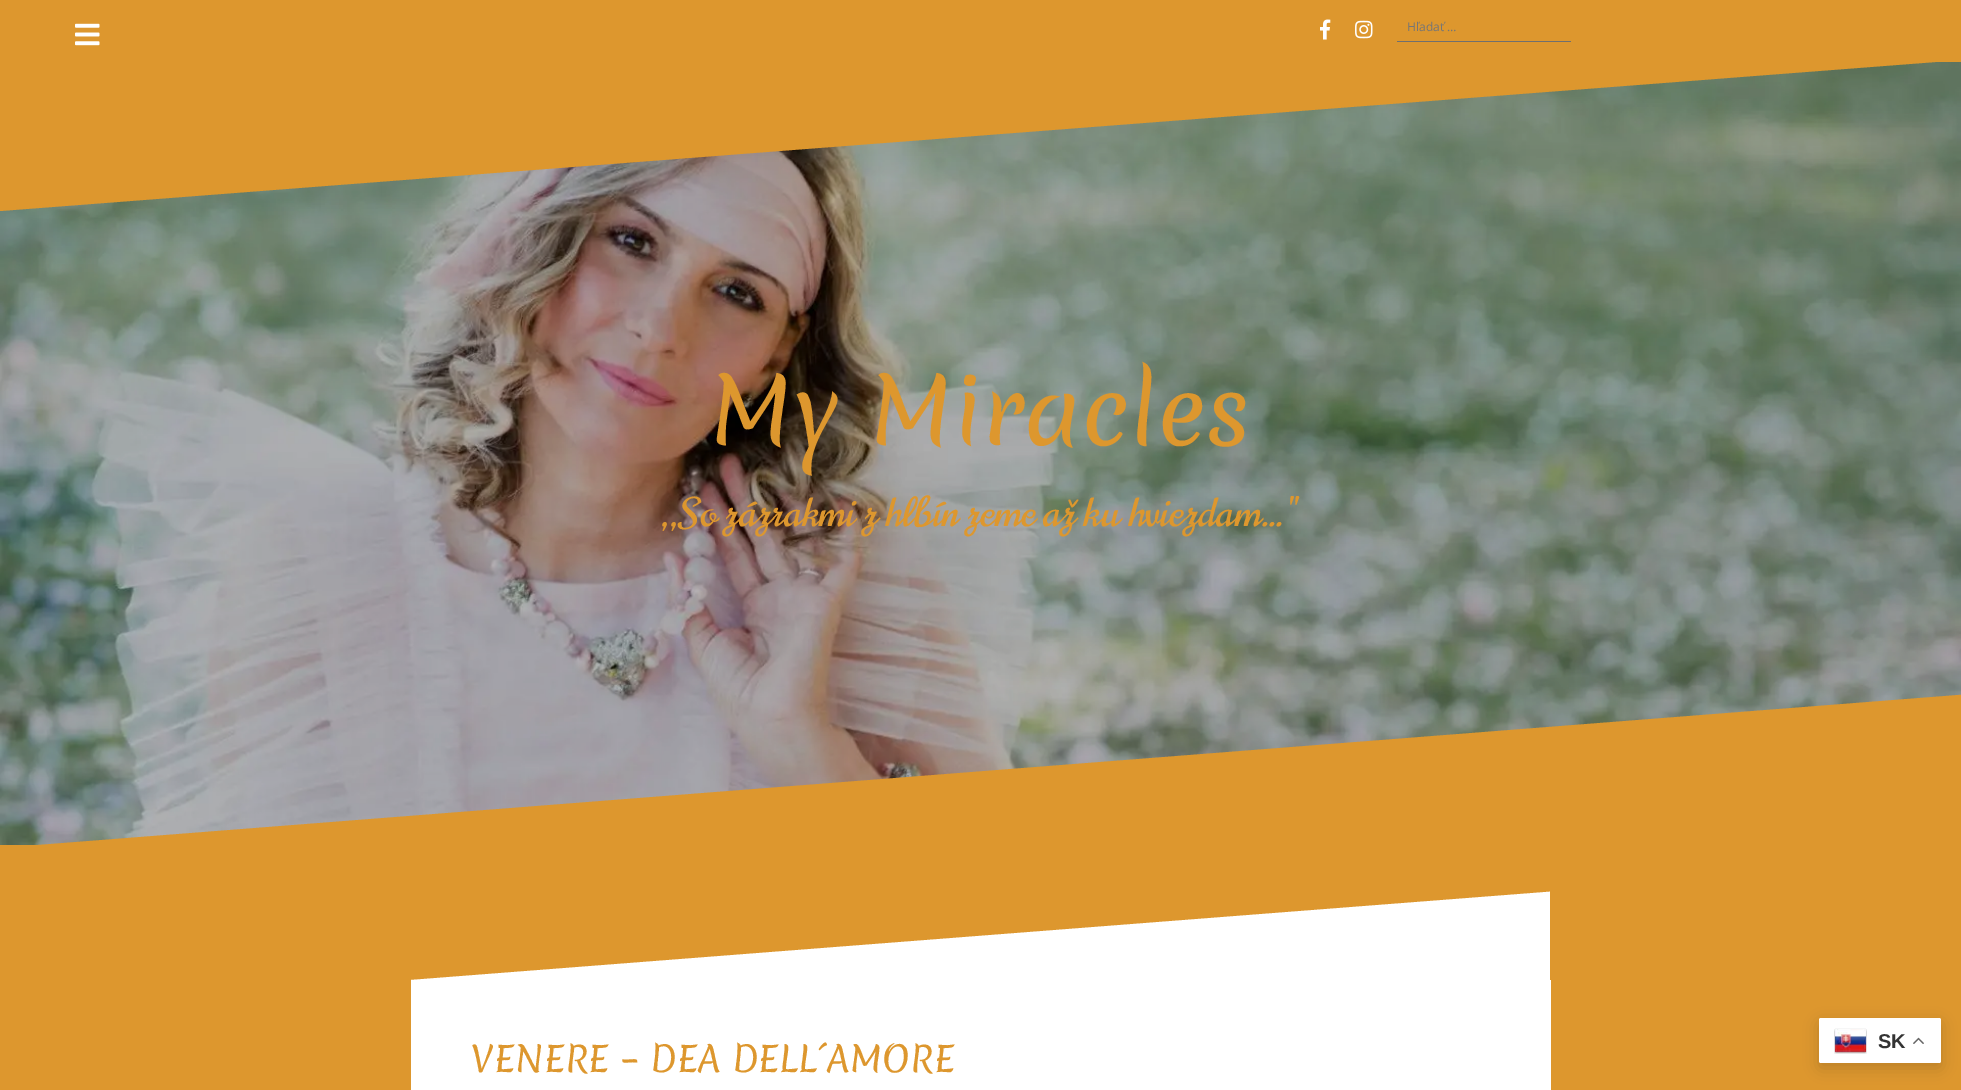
%!PS
<< /PageSize [1961 1090] /PageUsesTransparency true >> setpagedevice
/m/moveto load def
/l/rlineto load def
/f/fill load def
/q/gsave load def
/Q_/grestore load def
/C { dup -16 bitshift 255 div exch dup -8 bitshift 255 and 255 div exch 255 and 255 div setrgbcolor } def
/F { [ exch dup neg 0 0 3 -1 roll 0 0 ] selectfont } def
/T { moveto show } def
/R { rectfill } def
/A { dup .setfillconstantalpha .setstrokeconstantalpha } def
/Q { 5 dict begin { /r /h /w /y /x } { exch def } forall
  x r add y moveto x w add y 2 copy h add r arct x w add y h add x 1 index r arct
  x y h add x y r arct x y 2 copy exch w add exch r arct closepath end } def
/S { 12 dict begin { /a /b /q /h /w /y /x } { exch def } forall gsave /was 0 def
  9 -2 -9 { dup b mul 4 div /e exch def 1 sub .425 mul 2.718 exch exp 1 add a .99 .min exch div /now exch def
    1 1 now sub 1 was sub div sub A /was now def
    w h .min e 2 mul add 0 gt { x e sub y e sub w e 2 mul add h e 2 mul add
      q e add b .6 mul add w h .min 2 div e add .min 0 .max Q fill } if } for grestore end } def
/I { 5 dict begin { /h /w /y /x /name } { exch def } forall
  gsave x y translate w h scale
  w h 8 [w 0 0 h 0 0] name (r) file false 3 colorimage grestore end } def
0 .pushpdf14devicefilter
0 1090 translate 1 -1 scale
4 setmiterlimit
16#DD972E C
0 0 1961 1090 R
(1.rgb) 75 23 25 23 I
(2.rgb) 1320 19 11 21 I
(3.rgb) 1355 20 18 19 I
16#6F6F6F C
1397 41 174 1 R
/OpenSans-Regular 12 F
16#757575 C
(Hľadať …) 1407 31 T
(4.rgb) 0 62 1961 783 I
16#DD972E C
0 211 m 0 -151 l 1961 0 l f
/Merienda-Regular 90 F
(My Miracles) 710 445 T
/Norican-Regular 40 F
(,,So zázrakmi z hlbín zeme až ku hviezdam…") 660 526 T
q
0 692 1961 155 rectclip
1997 692 m 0 156 l -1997 0 l f
Q_
q
411 890 1139 91 rectclip
16#FFFFFF C
1572 890 m 0 90 l -1161 0 l f
Q_
16#FFFFFF C
411 980 1140 110 R
/Merienda-Regular 35 F
16#DD972E C
(VENERE – DEA DELL´AMORE) 471 1072 T
16#000000 C
1819 1023 122 45 2 7.5 .15 S
16#FFFFFF C
1819 1018 122 45 2 Q f
(5.rgb) 1834 1028 33 26 I
/LiberationSans-Bold 20 F
16#333333 C
(SK) 1878 1048 T
(6.rgb) 1913 1037 11 7 I
.poppdf14devicefilter showpage
